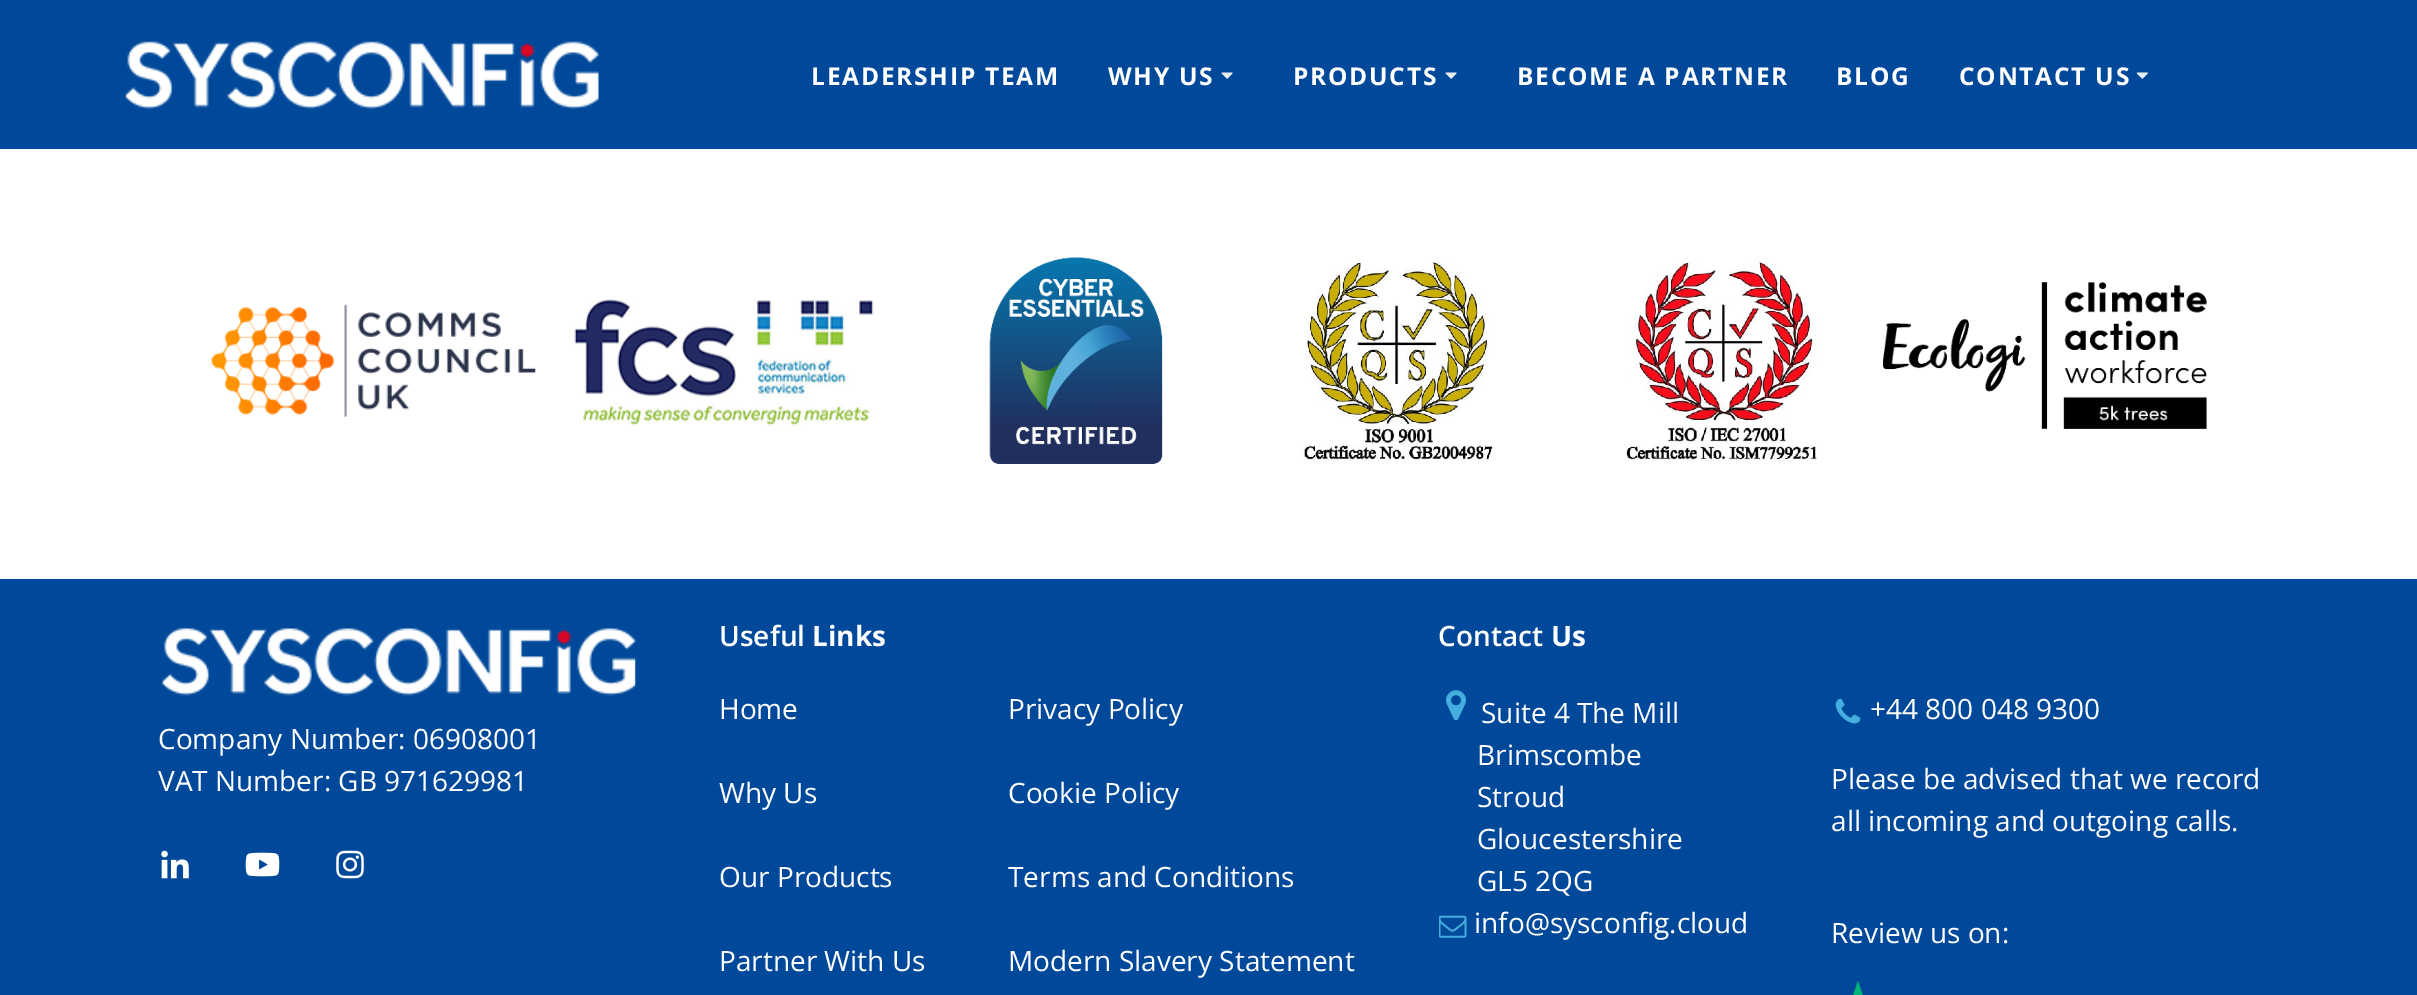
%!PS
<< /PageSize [2417 995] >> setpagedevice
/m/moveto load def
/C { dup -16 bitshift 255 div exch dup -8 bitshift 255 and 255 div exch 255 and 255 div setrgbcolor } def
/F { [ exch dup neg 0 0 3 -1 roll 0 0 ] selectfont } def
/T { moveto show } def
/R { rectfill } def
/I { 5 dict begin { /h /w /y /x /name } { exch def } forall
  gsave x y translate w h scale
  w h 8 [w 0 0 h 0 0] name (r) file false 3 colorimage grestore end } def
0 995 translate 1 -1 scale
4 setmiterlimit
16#FFFFFF C
0 0 2417 995 R
16#00499A C
0 0 2417 149 R
(1.rgb) 125 41 474 68 I
/OpenSans-Bold 24.5 F
16#FFFFFF C
811 85 m 1.75 0 (LEADERSHIP TEAM) ashow
1108 85 m 1.75 0 (WHY US) ashow
(2.rgb) 1221 72 12 7 I
1293 85 m 1.75 0 (PRODUCTS) ashow
(2.rgb) 1445 72 12 7 I
1517 85 m 1.75 0 (BECOME A PARTNER) ashow
1836 85 m 1.75 0 (BLOG) ashow
1959 85 m 1.75 0 (CONTACT US) ashow
(3.rgb) 2136 72 12 7 I
(4.rgb) 211 304 325 113 I
(5.rgb) 535 299 339 129 I
(6.rgb) 989 257 174 207 I
(7.rgb) 1301 257 192 204 I
(8.rgb) 1624 257 193 204 I
(9.rgb) 1883 282 324 147 I
16#00499A C
0 579 2417 416 R
(10.rgb) 162 628 474 68 I
/OpenSans-Regular 28 F
16#FFFFFF C
(Company Number: 06908001) 158 749 T
(VAT Number: GB 971629981) 158 791 T
(11.rgb) 161 850 28 29 I
(12.rgb) 245 852 35 25 I
(13.rgb) 336 850 28 29 I
/OpenSans-SemiBold 28 F
(Useful) 719 646 T
/OpenSans-Bold 28 F
(Links) 812 646 T
/OpenSans-Regular 28 F
(Home) 719 719 T
(Why Us) 719 803 T
(Our Products) 719 887 T
(Partner With Us) 719 971 T
(Privacy Policy) 1008 719 T
(Cookie Policy) 1008 803 T
(Terms and Conditions) 1008 887 T
(Modern Slavery Statement) 1008 971 T
/OpenSans-SemiBold 28 F
(Contact) 1438 646 T
/OpenSans-Bold 28 F
(Us) 1551 646 T
(14.rgb) 1446 690 20 31 I
/OpenSans-Regular 28 F
(Suite 4 The Mill) 1481 723 T
(Brimscombe) 1477 765 T
(Stroud) 1477 807 T
(Gloucestershire) 1477 849 T
(GL5 2QG) 1477 891 T
(15.rgb) 1439 915 28 23 I
(info@sysconfig.cloud) 1474 933 T
(16.rgb) 1835 698 26 26 I
(+44 800 048 9300) 1870 719 T
(Please be advised that we record) 1831 789 T
(all incoming and outgoing calls.) 1831 831 T
(Review us on:) 1831 943 T
(17.rgb) 1853 980 10 15 I
showpage
